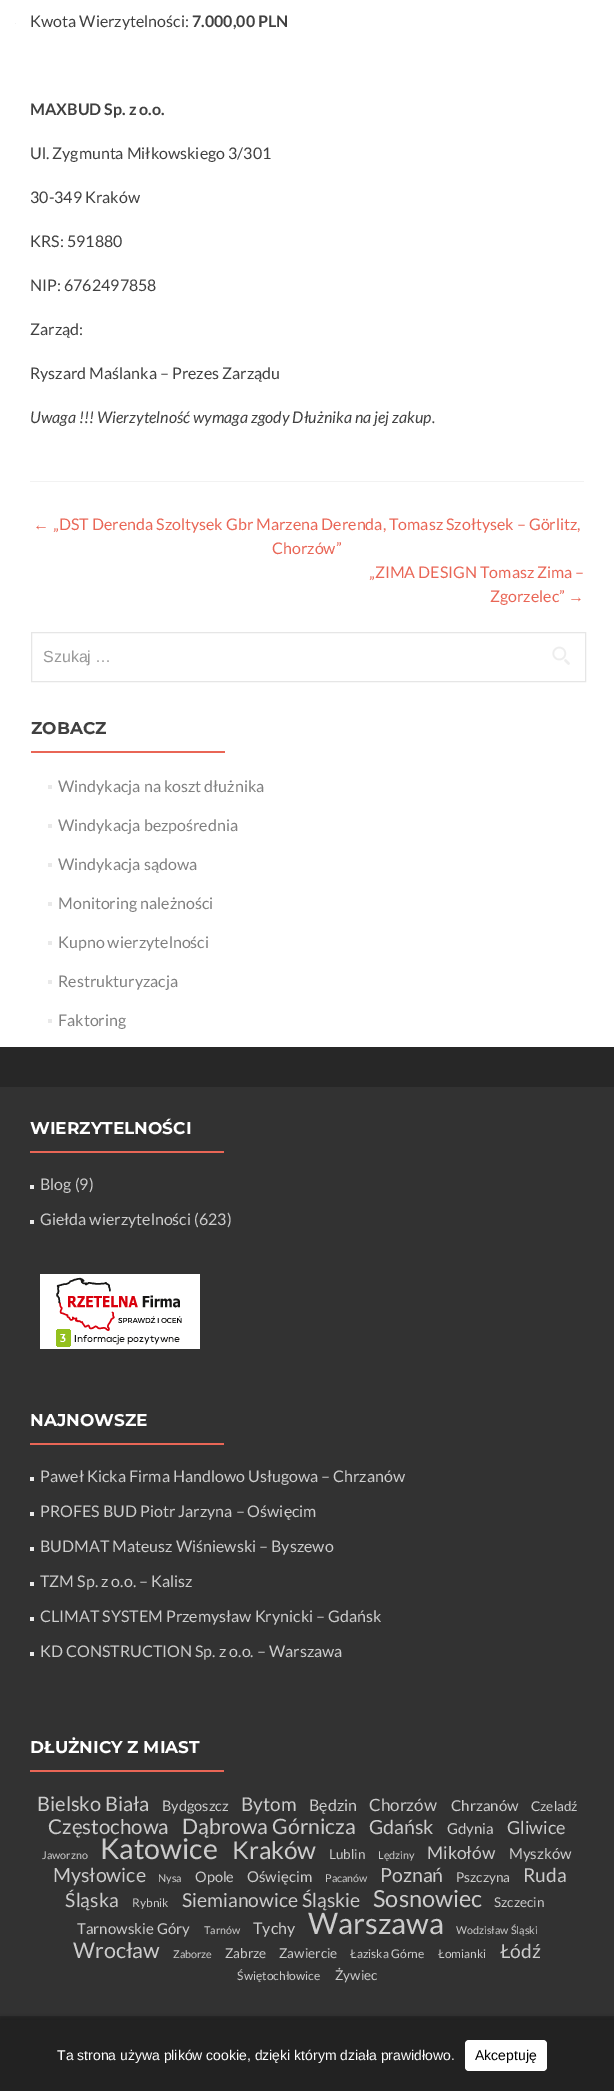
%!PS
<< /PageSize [614 2091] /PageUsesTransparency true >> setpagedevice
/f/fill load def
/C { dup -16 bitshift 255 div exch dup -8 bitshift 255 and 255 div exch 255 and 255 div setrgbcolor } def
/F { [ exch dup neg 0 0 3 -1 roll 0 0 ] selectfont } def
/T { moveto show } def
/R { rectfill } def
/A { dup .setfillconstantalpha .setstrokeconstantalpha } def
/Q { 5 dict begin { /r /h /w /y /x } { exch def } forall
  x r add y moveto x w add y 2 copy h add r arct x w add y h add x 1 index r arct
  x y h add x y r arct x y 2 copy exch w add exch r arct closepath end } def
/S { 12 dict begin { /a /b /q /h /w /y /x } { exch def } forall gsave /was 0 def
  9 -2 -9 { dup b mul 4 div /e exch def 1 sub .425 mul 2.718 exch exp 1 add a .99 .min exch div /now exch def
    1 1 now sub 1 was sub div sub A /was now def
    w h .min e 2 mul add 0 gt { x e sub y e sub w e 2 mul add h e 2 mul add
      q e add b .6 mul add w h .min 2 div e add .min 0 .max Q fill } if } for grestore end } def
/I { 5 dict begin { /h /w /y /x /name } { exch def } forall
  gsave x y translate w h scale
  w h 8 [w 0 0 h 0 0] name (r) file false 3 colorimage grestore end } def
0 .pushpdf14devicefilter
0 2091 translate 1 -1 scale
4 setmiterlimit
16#FFFFFF C
0 0 614 2091 R
16#F2F2F2 C
30 481 554 1 R
/Lato-Regular 16 F
16#404040 C
(Kwota Wierzytelności:) 30 27 T
/Lato-Bold 16 F
(7.000,00 PLN) 192 27 T
(MAXBUD Sp. z o.o.) 30 115 T
/Lato-Regular 16 F
(Ul. Zygmunta Miłkowskiego 3/301) 30 159 T
(30-349 Kraków) 30 203 T
(KRS: 591880) 30 247 T
(NIP: 6762497858) 30 291 T
(Zarząd:) 30 335 T
(Ryszard Maślanka – Prezes Zarządu) 30 379 T
/Lato-Italic 16 F
(Uwaga !!! Wierzytelność wymaga zgody Dłużnika na jej zakup.) 30 423 T
/LiberationSans-Regular 16 F
16#E96656 C
(←) 33 530 T
/Lato-Regular 16 F
(„DST Derenda Szoltysek Gbr Marzena Derenda, Tomasz Szołtysek – Görlitz,) 53 530 T
(Chorzów”) 272 554 T
(„ZIMA DESIGN Tomasz Zima –) 369 578 T
(Zgorzelec”) 490 602 T
/LiberationSans-Regular 16 F
(→) 568 602 T
16#F2F2F2 C
15 23 1 1 R
16#E6E6E6 C
31.5 632.5 554 49 rectstroke
16#999999 C
(Szukaj …) 43 662 T
(1.rgb) 552 646 18 19 I
/Montserrat-Bold 17 F
16#404040 C
(ZOBACZ) 31 734 T
16#E96656 C
31 751 194 2 R
16#E9E9E9 C
48 785 4 4 R
/Lato-Regular 16 F
16#808080 C
(Windykacja na koszt dłużnika) 58 792 T
16#E9E9E9 C
48 824 4 4 R
16#808080 C
(Windykacja bezpośrednia) 58 831 T
16#E9E9E9 C
48 863 4 4 R
16#808080 C
(Windykacja sądowa) 58 870 T
16#E9E9E9 C
48 902 4 4 R
16#808080 C
(Monitoring należności) 58 909 T
16#E9E9E9 C
48 941 4 4 R
16#808080 C
(Kupno wierzytelności) 58 948 T
16#E9E9E9 C
48 980 4 4 R
16#808080 C
(Restrukturyzacja) 58 987 T
16#E9E9E9 C
48 1019 4 4 R
16#808080 C
(Faktoring) 58 1026 T
16#272727 C
0 1047 614 973 R
16#323232 C
0 1087 614 929 R
/Montserrat-Bold 17 F
16#FFFFFF C
(WIERZYTELNOŚCI) 30 1134 T
16#E96656 C
30 1151 194 2 R
16#E9E9E9 C
30 1185 4 4 R
/Lato-Regular 16 F
16#CCCCCC C
(Blog \(9\)) 40 1190 T
16#E9E9E9 C
30 1220 4 4 R
16#CCCCCC C
(Giełda wierzytelności \(623\)) 40 1225 T
(2.rgb) 40 1274 160 75 I
/Montserrat-Bold 17 F
16#FFFFFF C
(NAJNOWSZE) 30 1426 T
16#E96656 C
30 1443 194 2 R
16#E9E9E9 C
30 1477 4 4 R
/Lato-Regular 16 F
16#CCCCCC C
(Paweł Kicka Firma Handlowo Usługowa – Chrzanów) 40 1482 T
16#E9E9E9 C
30 1512 4 4 R
16#CCCCCC C
(PROFES BUD Piotr Jarzyna – Oświęcim) 40 1517 T
16#E9E9E9 C
30 1547 4 4 R
16#CCCCCC C
(BUDMAT Mateusz Wiśniewski – Byszewo) 40 1552 T
16#E9E9E9 C
30 1582 4 4 R
16#CCCCCC C
(TZM Sp. z o.o. – Kalisz) 40 1587 T
16#E9E9E9 C
30 1617 4 4 R
16#CCCCCC C
(CLIMAT SYSTEM Przemysław Krynicki – Gdańsk) 40 1622 T
16#E9E9E9 C
30 1652 4 4 R
16#CCCCCC C
(KD CONSTRUCTION Sp. z o.o. – Warszawa) 40 1657 T
/Montserrat-Bold 17 F
16#FFFFFF C
(DŁUŻNICY Z MIAST) 30 1753 T
16#E96656 C
30 1770 194 2 R
/Lato-Regular 20 F
16#CCCCCC C
(Bielsko Biała) 37 1811 T
/Lato-Regular 14.5 F
(Bydgoszcz) 162 1811 T
/Lato-Regular 19 F
(Bytom) 241 1811 T
/Lato-Regular 16 F
(Będzin) 309 1811 T
/Lato-Regular 17 F
(Chorzów) 369 1811 T
/Lato-Regular 15 F
(Chrzanów) 451 1811 T
/Lato-Regular 13.5 F
(Czeladź) 531 1811 T
/Lato-Regular 20.5 F
(Częstochowa) 48 1834 T
/Lato-Regular 21.25 F
(Dąbrowa Górnicza) 182 1834 T
/Lato-Regular 19.5 F
(Gdańsk) 369 1834 T
/Lato-Regular 15 F
(Gdynia) 447 1834 T
/Lato-Regular 18 F
(Gliwice) 507 1834 T
/Lato-Regular 10.75 F
(Jaworzno) 42 1859 T
/Lato-Regular 28.5 F
(Katowice) 100 1859 T
/Lato-Regular 24.5 F
(Kraków) 232 1859 T
/Lato-Regular 13.5 F
(Lublin) 329 1859 T
/Lato-Regular 10.75 F
(Lędziny) 378 1859 T
/Lato-Regular 17.5 F
(Mikołów) 427 1859 T
/Lato-Regular 15 F
(Myszków) 509 1859 T
/Lato-Regular 19.5 F
(Mysłowice) 53 1882 T
/Lato-Regular 10.75 F
(Nysa) 158 1882 T
/Lato-Regular 14.5 F
(Opole) 195 1882 T
/Lato-Regular 15 F
(Oświęcim) 247 1882 T
/Lato-Regular 10.75 F
(Pacanów) 325 1882 T
/Lato-Regular 19.5 F
(Poznań) 380 1882 T
/Lato-Regular 13.5 F
(Pszczyna) 456 1882 T
/Lato-Regular 19.25 F
(Ruda) 523 1882 T
(Śląska) 65 1907 T
/Lato-Regular 12 F
(Rybnik) 132 1907 T
/Lato-Regular 19.25 F
(Siemianowice Śląskie) 182 1907 T
/Lato-Regular 23.5 F
(Sosnowiec) 373 1907 T
/Lato-Regular 13.5 F
(Szczecin) 494 1907 T
/Lato-Regular 15 F
(Tarnowskie Góry) 77 1934 T
/Lato-Regular 10.75 F
(Tarnów) 204 1934 T
/Lato-Regular 16 F
(Tychy) 253 1934 T
/Lato-Regular 29.5 F
(Warszawa) 308 1934 T
/Lato-Regular 10.75 F
(Wodzisław Śląski) 456 1934 T
/Lato-Regular 21.5 F
(Wrocław) 73 1958 T
/Lato-Regular 10.75 F
(Zaborze) 173 1958 T
/Lato-Regular 13.5 F
(Zabrze) 225 1958 T
(Zawiercie) 279 1958 T
/Lato-Regular 12 F
(Łaziska Górne) 350 1958 T
(Łomianki) 438 1958 T
/Lato-Regular 19.25 F
(Łódź) 500 1958 T
/Lato-Regular 12 F
(Świętochłowice) 237 1980 T
/Lato-Regular 13.5 F
(Żywiec) 335 1980 T
16#000000 C
0 2018 614 71 0 3 .3 S
16#222222 C
0 2020 614 71 R
/LiberationSans-Regular 14 F
16#FFFFFF C
(Ta strona używa plików cookie, dzięki którym działa prawidłowo.) 57 2060 T
465 2040 82 31 4 Q f
16#000000 C
(Akceptuję) 475 2060 T
.poppdf14devicefilter showpage
